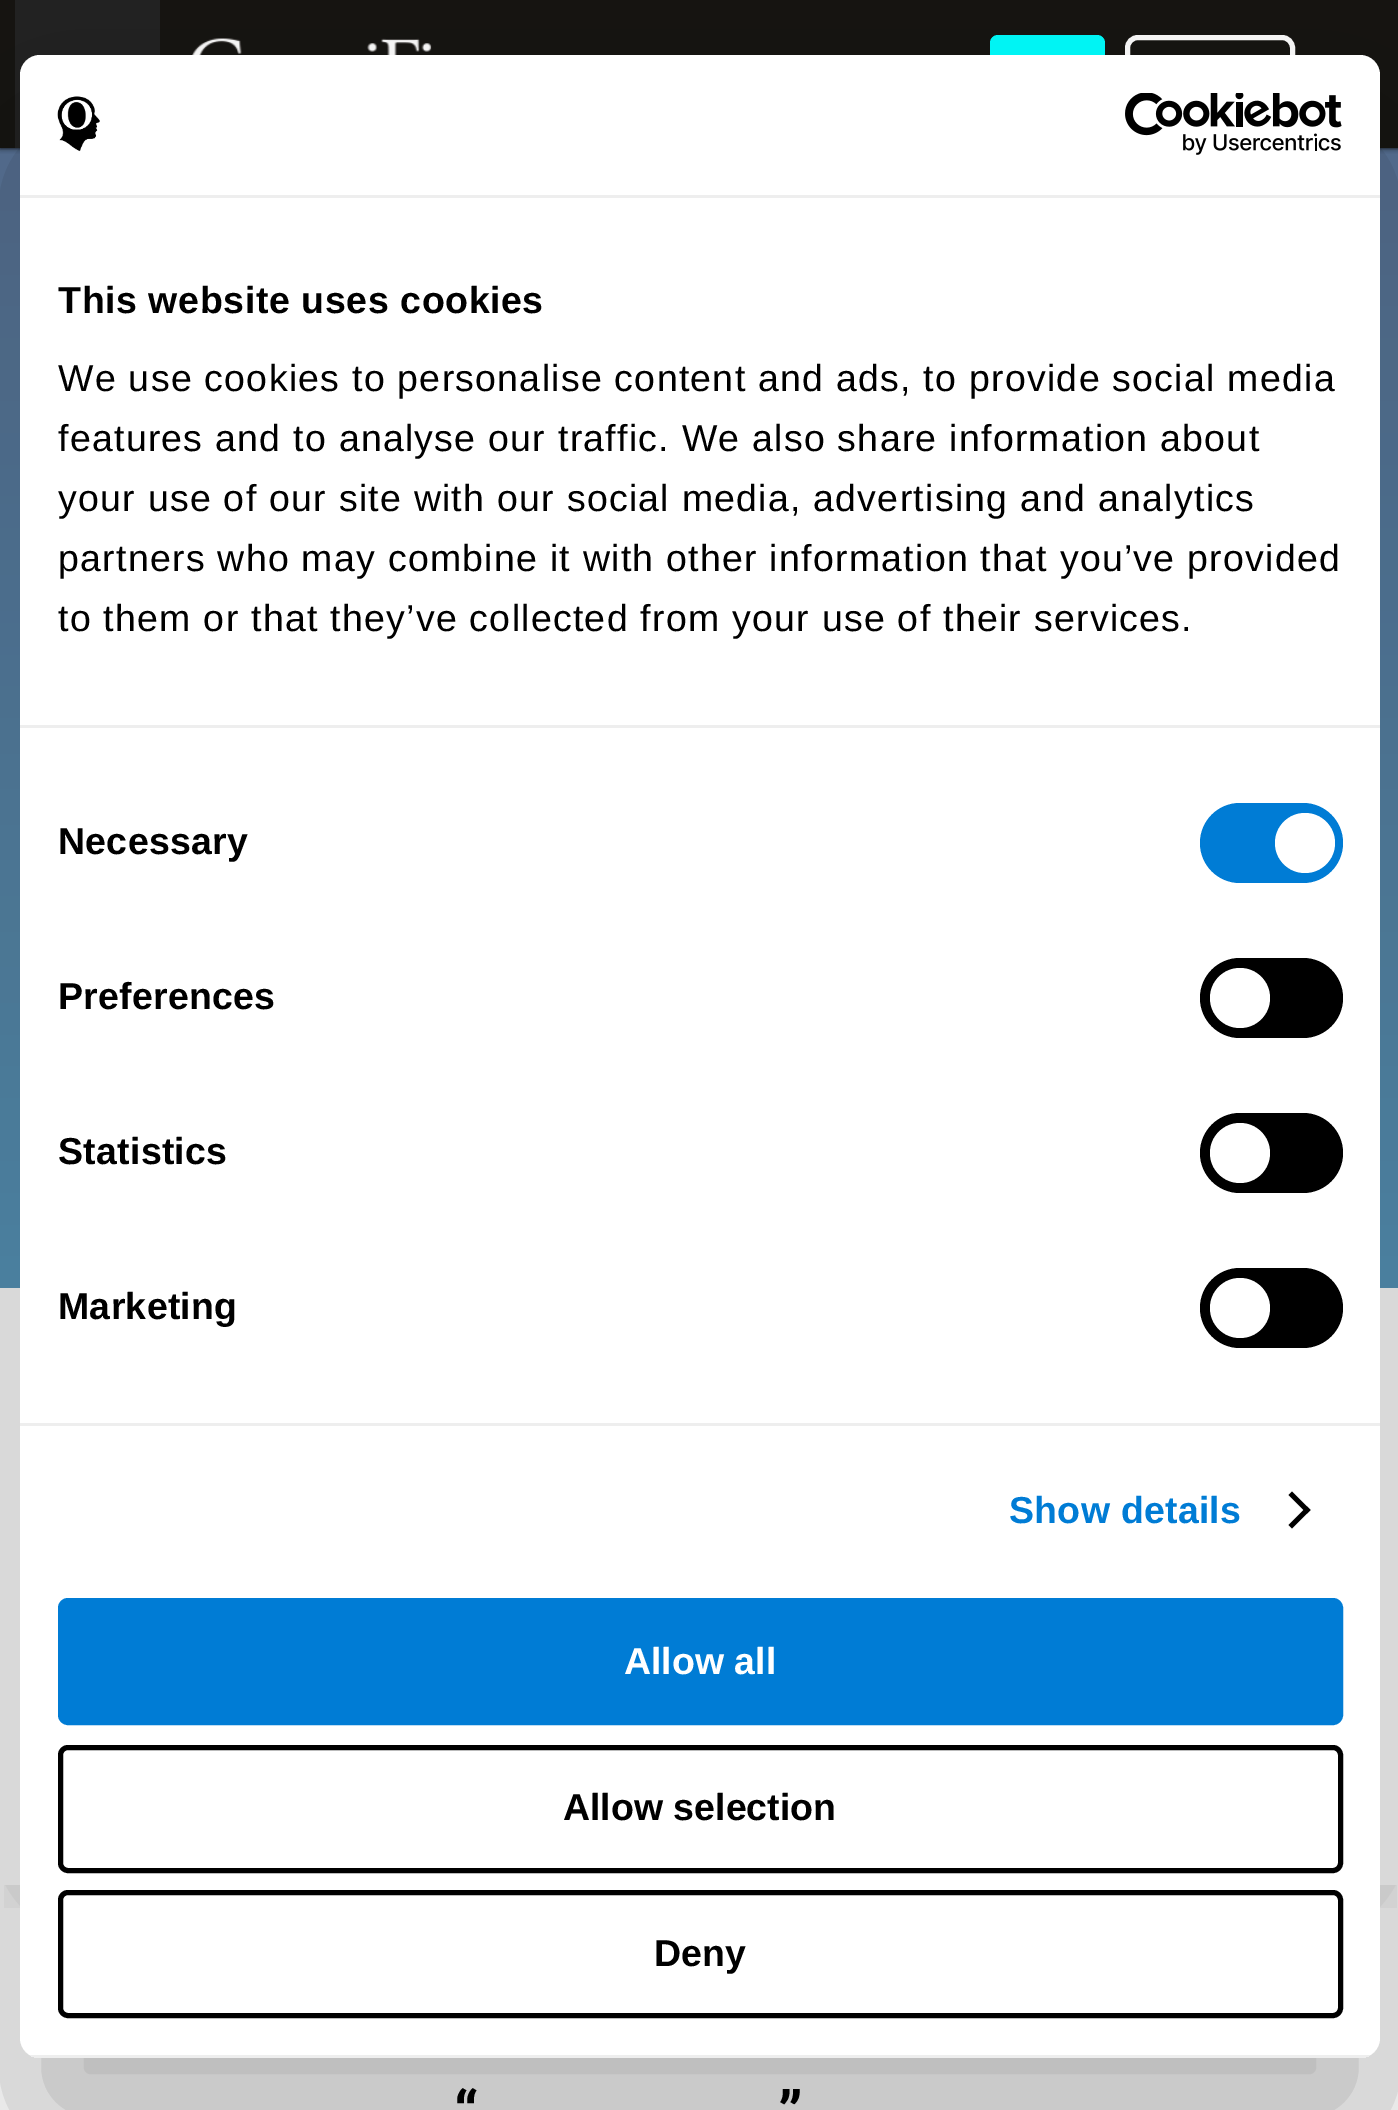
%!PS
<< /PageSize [1398 2110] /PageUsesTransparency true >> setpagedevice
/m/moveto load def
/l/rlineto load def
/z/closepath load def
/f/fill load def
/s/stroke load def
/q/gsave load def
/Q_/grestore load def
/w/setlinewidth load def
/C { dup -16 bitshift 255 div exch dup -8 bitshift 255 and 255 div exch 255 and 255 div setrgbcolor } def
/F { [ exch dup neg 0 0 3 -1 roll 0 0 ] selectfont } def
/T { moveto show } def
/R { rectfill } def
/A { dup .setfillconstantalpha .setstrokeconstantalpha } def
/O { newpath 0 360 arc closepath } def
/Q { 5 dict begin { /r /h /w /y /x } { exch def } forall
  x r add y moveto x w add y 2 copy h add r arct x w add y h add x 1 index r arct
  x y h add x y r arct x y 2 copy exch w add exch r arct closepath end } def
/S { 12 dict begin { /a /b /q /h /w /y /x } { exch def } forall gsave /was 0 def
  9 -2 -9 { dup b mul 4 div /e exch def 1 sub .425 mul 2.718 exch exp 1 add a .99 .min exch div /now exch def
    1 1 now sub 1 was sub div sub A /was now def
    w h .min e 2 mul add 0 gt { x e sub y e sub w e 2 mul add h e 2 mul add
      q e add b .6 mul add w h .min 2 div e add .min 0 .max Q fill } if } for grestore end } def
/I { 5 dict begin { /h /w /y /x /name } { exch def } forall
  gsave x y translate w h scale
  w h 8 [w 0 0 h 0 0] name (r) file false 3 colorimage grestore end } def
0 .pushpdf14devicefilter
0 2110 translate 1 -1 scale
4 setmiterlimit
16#FFFFFF C
0 0 1398 2110 R
q 0 148 m 1398 0 l 0 1140 l -1398 0 l z clip newpath
<< /ShadingType 2 /ColorSpace /DeviceRGB /Coords [700 0 700 1288] /Extend [true true] /Function << /FunctionType 2 /Domain [0 1] /C0 [.353 .435 .576] /C1 [.341 .588 .725] /N 1 >> >> shfill Q_
16#000000 C
0 0 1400 148 0 2.5 1 S
16#161411 C
0 0 1398 148 R
16#222222 C
15 0 145 148 R
(1.rgb) 192 38 240 17 I
16#00FFFF C
990 35 115 75 8 Q f
16#FFFFFF C
5 w
1127.5 37.5 165 68 10.5 Q s
16#000000 C
20 135 1360 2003 20 85 .3 S
q
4 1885 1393 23 rectclip
78 1415 1245 443 0 50 1 S
Q_
16#FFFFFF C
20 55 1360 2003 20 Q f
16#EEEEEE C
20 195 1360 3 R
(2.rgb) 57 96 43 56 I
(3.rgb) 1125 93 217 62 I
20 725 1360 3 R
/LiberationSans-Bold 37.5 F
16#000000 C
58 313 m .6 0 (This website uses cookies) ashow
/LiberationSans-Regular 37.5 F
58 391 m 1.25 0 (We use cookies to personalise content and ads, to provide social media) ashow
58 451 m 1.25 0 (features and to analyse our traffic. We also share information about) ashow
58 511 m 1.25 0 (your use of our site with our social media, advertising and analytics) ashow
58 571 m 1.25 0 (partners who may combine it with other information that you’ve provided) ashow
58 631 m 1.25 0 (to them or that they’ve collected from your use of their services.) ashow
16#EEEEEE C
20 1423 1360 3 R
/LiberationSans-Bold 37.5 F
16#000000 C
58 854 m .25 0 (Necessary) ashow
16#007CD5 C
1200 803 143 80 40 Q f
16#FFFFFF C
1305 843 30 O f
16#000000 C
58 1009 m .25 0 (Preferences) ashow
1200 958 143 80 40 Q f
16#FFFFFF C
1240 998 30 O f
16#000000 C
58 1164 m .25 0 (Statistics) ashow
1200 1113 143 80 40 Q f
16#FFFFFF C
1240 1153 30 O f
16#000000 C
58 1319 m .25 0 (Marketing) ashow
1200 1268 143 80 40 Q f
16#FFFFFF C
1240 1308 30 O f
16#007CD5 C
1009 1523 m .25 0 (Show details) ashow
16#000000 C
1292 1491.5 m 18.5 18.5 l -3.5 3.5 l -18.5 -18.5 l z f
1307 1506.5 m 3.5 3.5 l -18.5 18.5 l -3.5 -3.5 l z f
q
20 55 1360 2003 20 Q clip newpath
16#EEEEEE C
29 2055 1342 3 R
Q_
16#007CD5 C
60.5 1600.5 1280 122 7.5 Q q f Q_
s
16#FFFFFF C
(Allow all) 624 1674 T
16#000000 C
60.5 1747.5 1280 123 7.5 Q s
(Allow selection) 563 1820 T
60.5 1892.5 1280 123 7.5 Q s
(Deny) 654 1966 T
/Roboto-Bold 60 F
(“) 454 2134 T
(”) 778 2134 T
.poppdf14devicefilter showpage
